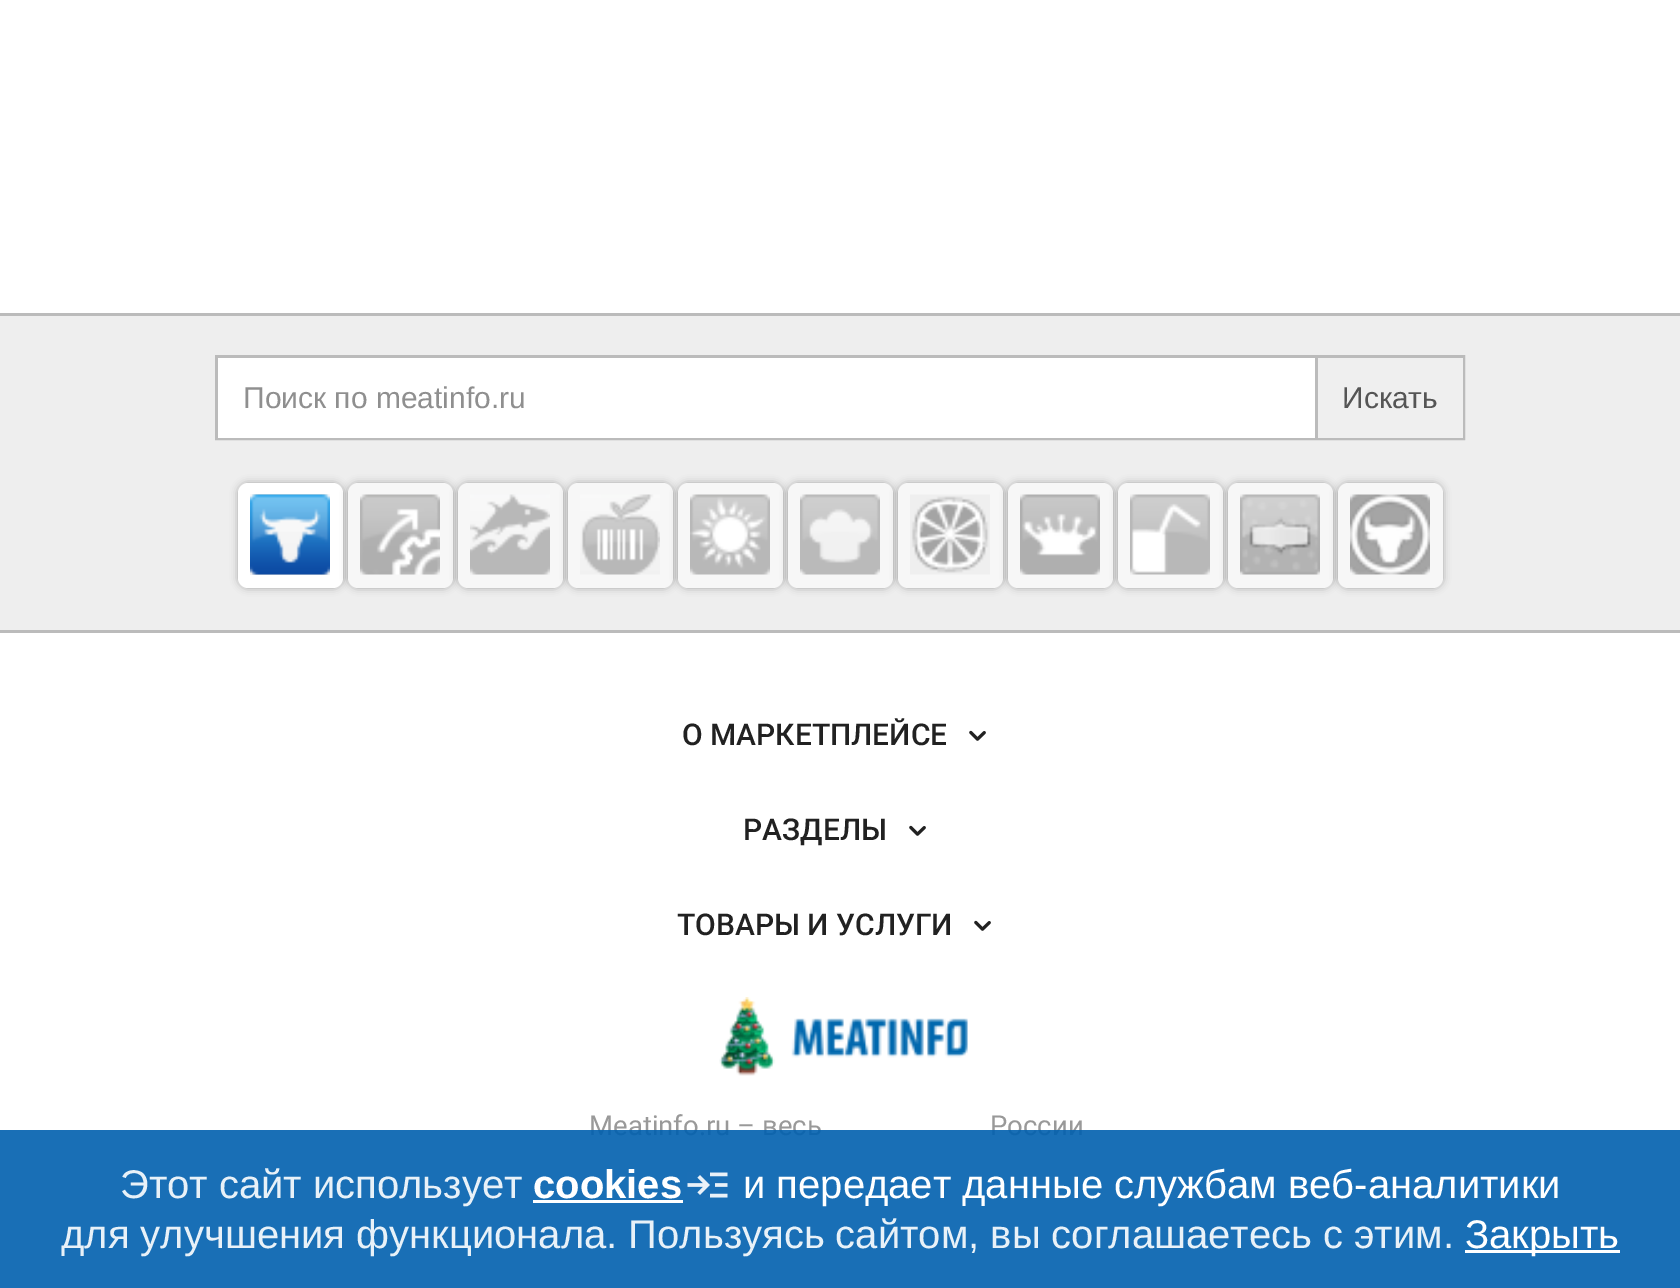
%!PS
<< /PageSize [1680 1288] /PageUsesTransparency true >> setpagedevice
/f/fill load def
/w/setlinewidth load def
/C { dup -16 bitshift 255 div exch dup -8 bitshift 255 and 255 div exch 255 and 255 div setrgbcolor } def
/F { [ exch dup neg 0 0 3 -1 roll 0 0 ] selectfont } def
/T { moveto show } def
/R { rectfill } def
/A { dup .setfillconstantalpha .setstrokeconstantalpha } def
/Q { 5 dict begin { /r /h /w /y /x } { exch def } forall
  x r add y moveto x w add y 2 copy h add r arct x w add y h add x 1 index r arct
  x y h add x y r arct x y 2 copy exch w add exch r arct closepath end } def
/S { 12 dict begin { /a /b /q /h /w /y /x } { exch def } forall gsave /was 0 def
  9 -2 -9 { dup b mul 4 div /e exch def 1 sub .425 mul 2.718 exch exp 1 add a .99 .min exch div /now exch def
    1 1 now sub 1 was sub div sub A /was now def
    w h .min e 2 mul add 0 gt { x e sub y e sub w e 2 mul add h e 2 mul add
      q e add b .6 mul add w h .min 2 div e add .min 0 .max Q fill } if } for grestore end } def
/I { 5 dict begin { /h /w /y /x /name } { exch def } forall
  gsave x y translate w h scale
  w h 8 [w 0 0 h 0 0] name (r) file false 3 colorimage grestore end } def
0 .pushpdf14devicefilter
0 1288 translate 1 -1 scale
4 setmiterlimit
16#FFFFFF C
0 0 1680 1288 R
16#EEEEEE C
0 316 1680 314 R
16#BBBBBB C
0 313 1680 3 R
0 630 1680 3 R
3 w
216.5 356.5 1247 82 rectstroke
16#FFFFFF C
218 358 1097 80 R
/LiberationSans-Regular 30 F
16#8F8F8F C
(Поиск по meatinfo.ru) 243 408 T
16#EFEFEF C
1318 358 145 80 R
16#BBBBBB C
1315 358 3 80 R
16#555555 C
(Искать) 1342 408 T
16#000000 C
238 483 105 105 10 4 .3 S
16#FFFFFF C
238 483 105 105 10 Q f
(1.rgb) 250 494 80 81 I
(2.rgb) 250 494 80 81 I
16#000000 C
348 483 105 105 10 4 .3 S
16#F7F7F7 C
348 483 105 105 10 Q f
(3.rgb) 360 494 80 81 I
16#000000 C
458 483 105 105 10 4 .3 S
16#F7F7F7 C
458 483 105 105 10 Q f
(4.rgb) 470 494 80 81 I
16#000000 C
568 483 105 105 10 4 .3 S
16#F7F7F7 C
568 483 105 105 10 Q f
(5.rgb) 580 494 80 81 I
16#000000 C
678 483 105 105 10 4 .3 S
16#F7F7F7 C
678 483 105 105 10 Q f
(6.rgb) 690 494 80 81 I
16#000000 C
788 483 105 105 10 4 .3 S
16#F7F7F7 C
788 483 105 105 10 Q f
(7.rgb) 800 494 80 81 I
16#000000 C
898 483 105 105 10 4 .3 S
16#F7F7F7 C
898 483 105 105 10 Q f
(8.rgb) 910 494 80 81 I
16#000000 C
1008 483 105 105 10 4 .3 S
16#F7F7F7 C
1008 483 105 105 10 Q f
(9.rgb) 1020 494 80 81 I
16#000000 C
1118 483 105 105 10 4 .3 S
16#F7F7F7 C
1118 483 105 105 10 Q f
(10.rgb) 1130 494 80 81 I
16#000000 C
1228 483 105 105 10 4 .3 S
16#F7F7F7 C
1228 483 105 105 10 Q f
(11.rgb) 1240 494 80 81 I
16#000000 C
1338 483 105 105 10 4 .3 S
16#F7F7F7 C
1338 483 105 105 10 Q f
(12.rgb) 1350 494 80 81 I
/Roboto-Medium 30 F
16#212121 C
(О МАРКЕТПЛЕЙСЕ) 682 745 T
(13.rgb) 969 730 17 11 I
(РАЗДЕЛЫ) 743 840 T
(13.rgb) 909 825 17 11 I
(ТОВАРЫ И УСЛУГИ) 677 935 T
(13.rgb) 974 920 17 11 I
(14.rgb) 719 997 249 79 I
/Roboto-Regular 27.5 F
16#999999 C
(Meatinfo.ru – весь) 589 1135 T
(России) 990 1135 T
0.9 A
16#005FAE C
0 1130 1680 158 R
/LiberationSans-Regular 40 F
1 A
16#E8F1F8 C
(Этот сайт использует) 120 1198 T
/LiberationSans-Bold 40 F
16#FFFFFF C
(cookies) 533 1198 T
533 1200 150 3 R
(15.rgb) 687 1172 41 26 I
/LiberationSans-Regular 40 F
(и передает данные службам веб-аналитики) 743 1198 T
16#E8F1F8 C
(для улучшения функционала. Пользуясь сайтом, вы соглашаетесь с этим.) 61 1248 T
16#FFFFFF C
1465 1250 155 3 R
(Закрыть) 1465 1248 T
.poppdf14devicefilter showpage
